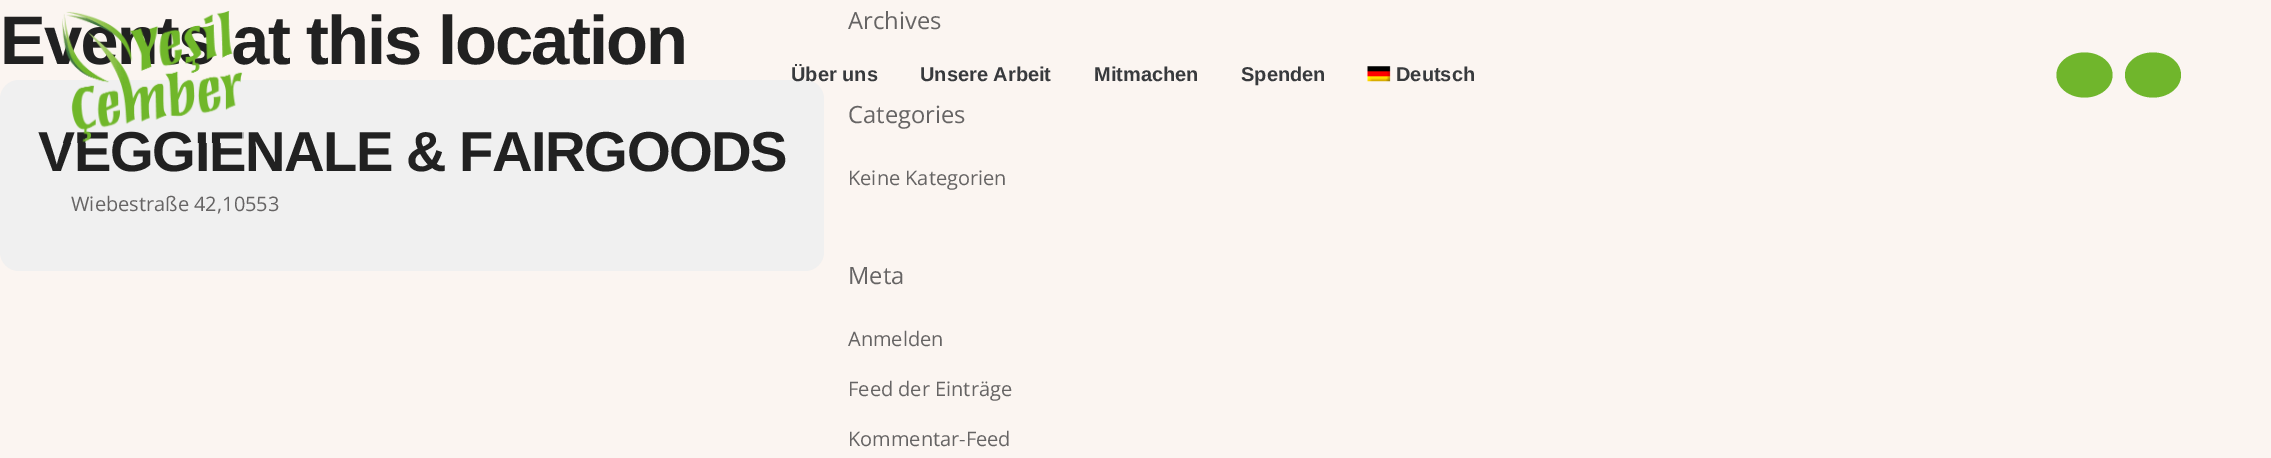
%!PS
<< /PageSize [2271 458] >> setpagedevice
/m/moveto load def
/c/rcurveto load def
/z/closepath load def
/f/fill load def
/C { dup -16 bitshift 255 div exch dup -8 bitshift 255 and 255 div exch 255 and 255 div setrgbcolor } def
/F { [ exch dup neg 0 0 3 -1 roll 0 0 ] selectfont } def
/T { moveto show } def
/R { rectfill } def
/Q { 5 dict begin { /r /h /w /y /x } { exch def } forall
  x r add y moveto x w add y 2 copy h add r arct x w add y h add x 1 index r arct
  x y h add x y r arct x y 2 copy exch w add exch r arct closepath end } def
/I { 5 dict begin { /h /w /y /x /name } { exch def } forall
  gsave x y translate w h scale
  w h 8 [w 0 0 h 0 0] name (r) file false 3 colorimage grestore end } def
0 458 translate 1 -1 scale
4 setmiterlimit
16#FBF5F1 C
0 0 2271 458 R
/LiberationSans-Bold 68.75 F
16#212121 C
0 64 m -1.9 0 (Events at this location) ashow
16#F0F0F0 C
0 80 824 191 19 Q f
/LiberationSans-Bold 56.25 F
16#212121 C
38 171 m -1.5 0 (VEGGIENALE & FAIRGOODS) ashow
/OpenSans-Regular 20 F
16#666464 C
(Wiebestraße 42,10553) 71 211 T
/OpenSans-Regular 23.75 F
(Archives) 848 29 T
(Categories) 848 123 T
/OpenSans-Regular 20 F
(Keine Kategorien) 848 185 T
/OpenSans-Regular 23.75 F
(Meta) 848 284 T
/OpenSans-Regular 20 F
(Anmelden) 848 346 T
(Feed der Einträge) 848 396 T
(Kommentar-Feed) 848 446 T
(1.rgb) 62 10 181 133 I
/LiberationSans-Bold 20 F
16#383A3D C
(Über uns) 791 81 T
(Unsere Arbeit) 920 81 T
(Mitmachen) 1094 81 T
(Spenden) 1241 81 T
(2.rgb) 1367 66 24 16 I
(Deutsch) 1396 81 T
16#70B62C C
2084.5 52.5 m 15.5 0 28 10 28 22.5 c 0 12.5 -12.5 22.5 -28 22.5 c -15.5 0 -28 -10 -28 -22.5 c 0 -12.5 12.5 -22.5 28 -22.5 c z f
2153 52.5 m 15.5 0 28 10 28 22.5 c 0 12.5 -12.5 22.5 -28 22.5 c -15.5 0 -28 -10 -28 -22.5 c 0 -12.5 12.5 -22.5 28 -22.5 c z f
showpage
